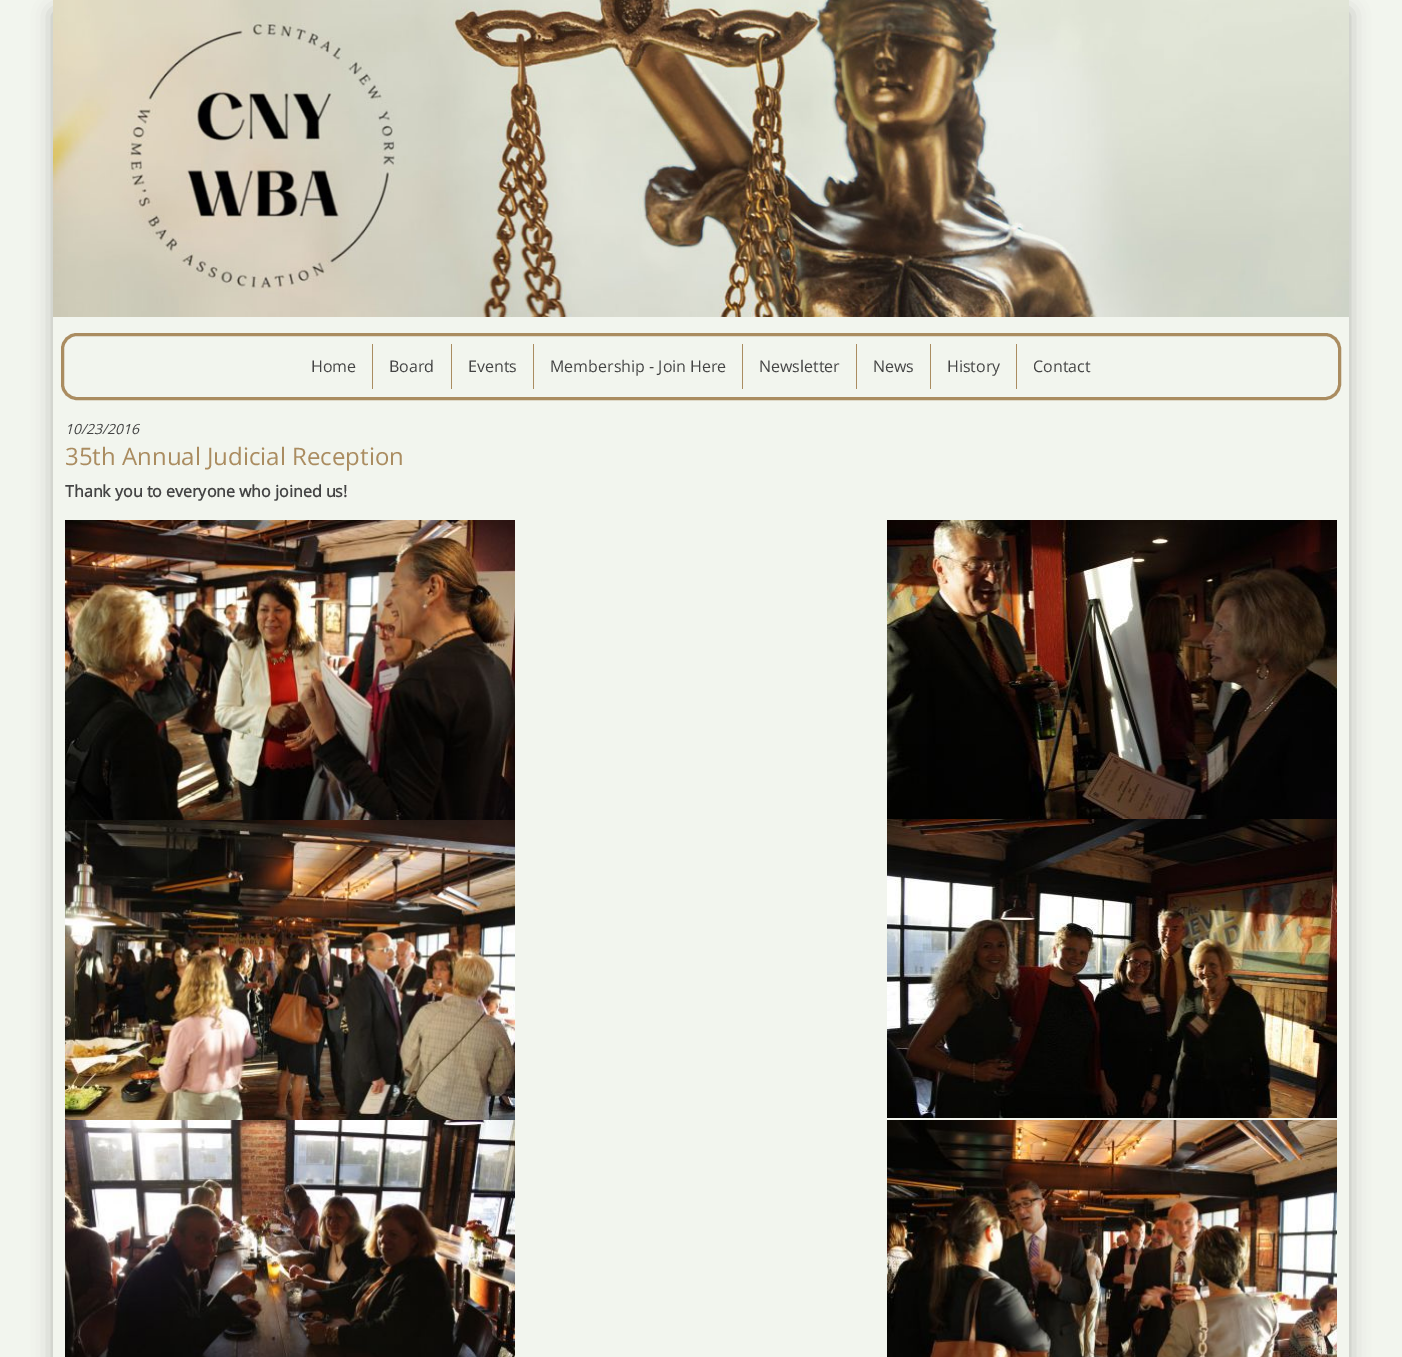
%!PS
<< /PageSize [1402 1357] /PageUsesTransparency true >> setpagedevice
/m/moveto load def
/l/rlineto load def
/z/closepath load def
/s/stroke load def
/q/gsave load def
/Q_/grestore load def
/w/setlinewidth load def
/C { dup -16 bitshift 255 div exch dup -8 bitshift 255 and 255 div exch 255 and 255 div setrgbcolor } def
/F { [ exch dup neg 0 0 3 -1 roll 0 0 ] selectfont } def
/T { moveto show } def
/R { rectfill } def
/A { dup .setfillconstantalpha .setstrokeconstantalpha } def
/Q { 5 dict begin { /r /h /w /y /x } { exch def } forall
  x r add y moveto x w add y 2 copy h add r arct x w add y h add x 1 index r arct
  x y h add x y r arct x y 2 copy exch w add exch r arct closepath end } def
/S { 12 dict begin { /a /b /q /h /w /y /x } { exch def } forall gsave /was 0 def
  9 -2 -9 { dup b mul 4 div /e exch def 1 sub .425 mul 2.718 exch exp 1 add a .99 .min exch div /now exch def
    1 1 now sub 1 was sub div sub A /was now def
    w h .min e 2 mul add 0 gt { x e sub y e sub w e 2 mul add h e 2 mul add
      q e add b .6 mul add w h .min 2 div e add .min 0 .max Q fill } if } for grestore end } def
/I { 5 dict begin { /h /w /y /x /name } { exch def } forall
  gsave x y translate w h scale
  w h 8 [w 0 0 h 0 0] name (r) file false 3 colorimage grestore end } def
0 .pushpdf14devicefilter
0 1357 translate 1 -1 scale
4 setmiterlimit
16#F2F5EE C
0 0 1402 1357 R
q
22 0 m 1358 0 l 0 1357 l -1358 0 l z 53 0 m 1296 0 l 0 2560 l -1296 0 l z eoclip newpath
16#B1B3AE C
53 12 1296 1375 0 10 1 S
Q_
(1.rgb) 53 0 1296 317 I
16#AA8C60 C
3 w
62.5 334.5 1277 64 14.5 Q s
/OpenSans-Regular 16 F
16#444444 C
(Home) 311 372 T
16#AA8C60 C
372 344 1 45 R
16#444444 C
(Board) 389 372 T
16#AA8C60 C
451 344 1 45 R
16#444444 C
(Events) 468 372 T
16#AA8C60 C
533 344 1 45 R
16#444444 C
(Membership - Join Here) 550 372 T
16#AA8C60 C
742 344 1 45 R
16#444444 C
(Newsletter) 759 372 T
16#AA8C60 C
856 344 1 45 R
16#444444 C
(News) 873 372 T
16#AA8C60 C
930 344 1 45 R
16#444444 C
(History) 947 372 T
16#AA8C60 C
1016 344 1 45 R
16#444444 C
(Contact) 1033 372 T
/OpenSans-Italic 14 F
(10/23/2016) 65 434 T
/OpenSans-Regular 24 F
16#AA8C60 C
(35th Annual Judicial Reception) 65 465 T
/OpenSans-Bold 16 F
16#444444 C
(Thank you to everyone who joined us!) 65 497 T
(2.rgb) 65 520 450 300 I
(3.rgb) 887 520 450 299 I
(4.rgb) 65 820 450 300 I
(5.rgb) 887 819 450 299 I
(6.rgb) 65 1120 450 237 I
(7.rgb) 887 1120 450 237 I
.poppdf14devicefilter showpage
